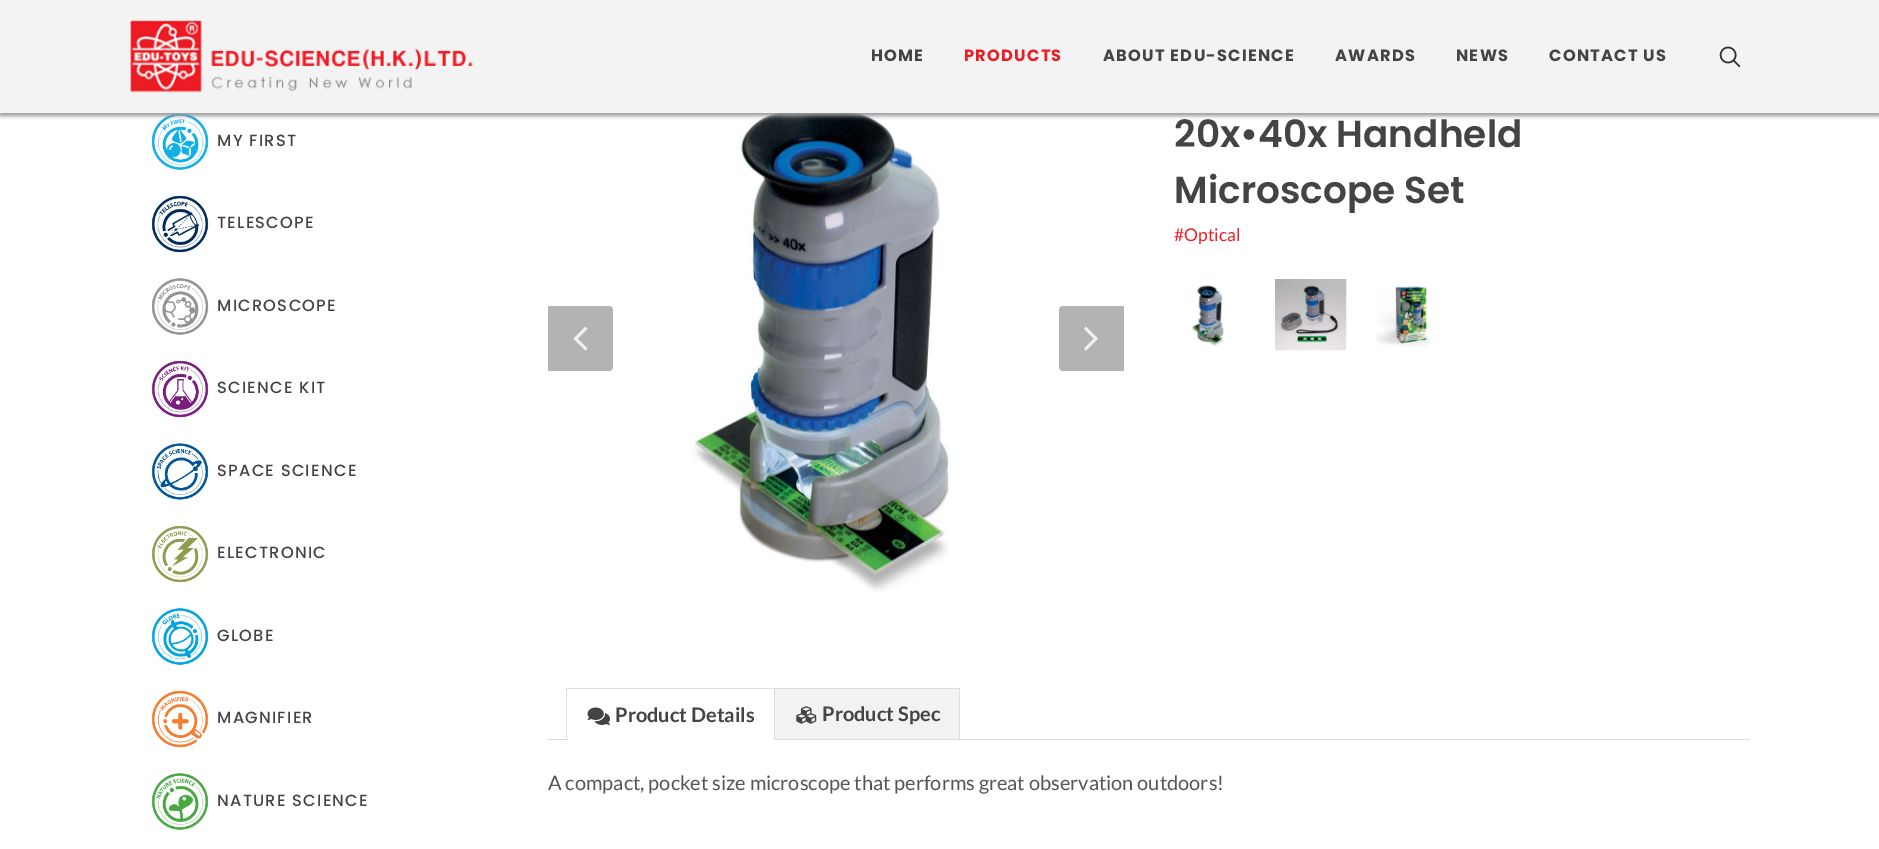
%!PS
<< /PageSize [1879 849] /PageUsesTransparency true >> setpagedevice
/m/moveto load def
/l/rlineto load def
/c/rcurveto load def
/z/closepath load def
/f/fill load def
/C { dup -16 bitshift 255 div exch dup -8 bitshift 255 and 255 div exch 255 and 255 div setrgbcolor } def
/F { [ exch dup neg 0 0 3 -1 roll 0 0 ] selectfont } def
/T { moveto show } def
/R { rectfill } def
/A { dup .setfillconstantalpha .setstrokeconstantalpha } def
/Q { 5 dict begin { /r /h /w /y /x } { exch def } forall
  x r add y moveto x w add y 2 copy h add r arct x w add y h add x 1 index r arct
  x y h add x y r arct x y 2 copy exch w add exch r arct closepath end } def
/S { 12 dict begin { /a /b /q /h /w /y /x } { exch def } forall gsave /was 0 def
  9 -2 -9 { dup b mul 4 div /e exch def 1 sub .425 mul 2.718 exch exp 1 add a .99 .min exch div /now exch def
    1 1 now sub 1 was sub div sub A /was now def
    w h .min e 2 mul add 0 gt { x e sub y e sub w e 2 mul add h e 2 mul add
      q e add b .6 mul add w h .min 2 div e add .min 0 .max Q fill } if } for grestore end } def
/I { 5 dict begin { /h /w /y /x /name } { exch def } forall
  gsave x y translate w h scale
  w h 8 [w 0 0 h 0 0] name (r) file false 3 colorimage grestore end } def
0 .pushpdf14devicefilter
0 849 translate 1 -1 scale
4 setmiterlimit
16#FFFFFF C
0 0 1879 849 R
(3.rgb) 151 113 58 57 I
(12.rgb) 691 113 258 479 I
16#999999 C
0 4 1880 112 0 2 1 S
16#F3F3F3 C
0 0 1879 113 R
(1.rgb) 130 20 343 73 I
/Poppins-Bold 16.25 F
16#444444 C
871 61 m 1.25 0 (HOME) ashow
16#ED1C24 C
964 61 m 1.25 0 (PRODUCTS) ashow
16#444444 C
1103 61 m 1.25 0 (ABOUT EDU-SCIENCE) ashow
1335 61 m 1.25 0 (AWARDS) ashow
1456 61 m 1.25 0 (NEWS) ashow
1549 61 m 1.25 0 (CONTACT US) ashow
(2.rgb) 1719 46 22 22 I
/Poppins-Medium 16.25 F
217 146 m 1.25 0 (MY FIRST) ashow
(4.rgb) 151 195 58 58 I
217 228 m 1.25 0 (TELESCOPE) ashow
(5.rgb) 151 278 58 57 I
217 311 m 1.25 0 (MICROSCOPE) ashow
(6.rgb) 151 360 58 58 I
217 393 m 1.25 0 (SCIENCE KIT) ashow
(7.rgb) 151 443 58 57 I
217 476 m 1.25 0 (SPACE SCIENCE) ashow
(8.rgb) 151 525 58 58 I
217 558 m 1.25 0 (ELECTRONIC) ashow
(9.rgb) 151 608 58 57 I
217 641 m 1.25 0 (GLOBE) ashow
(10.rgb) 151 690 58 58 I
217 723 m 1.25 0 (MAGNIFIER) ashow
(11.rgb) 151 773 58 57 I
217 806 m 1.25 0 (NATURE SCIENCE) ashow
16#B3B3B3 C
548 306 m 61 0 l 2 0 4 2 4 4 c 0 57 l 0 2 -2 4 -4 4 c -61 0 l z f
(13.rgb) 573 326 15 25 I
1063 306 m 61 0 l 0 65 l -61 0 l -2 0 -4 -2 -4 -4 c 0 -57 l 0 -2 2 -4 4 -4 c z f
(14.rgb) 1084 327 14 24 I
/Poppins-SemiBold 37.5 F
16#444444 C
(20x•40x Handheld) 1174 147 T
(Microscope Set) 1174 203 T
/Lato-Regular 17.5 F
16#ED1C24 C
(#Optical) 1174 241 T
(15.rgb) 1191 285 33 61 I
(16.rgb) 1275 279 72 72 I
(17.rgb) 1376 286 55 62 I
16#DDDDDD C
548 739 1202 1 R
566 688 394 1 R
774 688 1 51 R
566 688 1 51 R
16#FFFFFF C
568 739 206 1 R
(18.rgb) 587 707 23 18 I
/Lato-Bold 20 F
16#444444 C
(Product Details) 615 722 T
16#DDDDDD C
959 688 1 51 R
16#F2F2F2 C
775 689 184 50 R
(19.rgb) 796 706 21 18 I
16#444444 C
(Product Spec) 822 721 T
/Lato-Regular 20 F
16#555555 C
(A compact, pocket size microscope that performs great observation outdoors!) 548 790 T
.poppdf14devicefilter showpage
